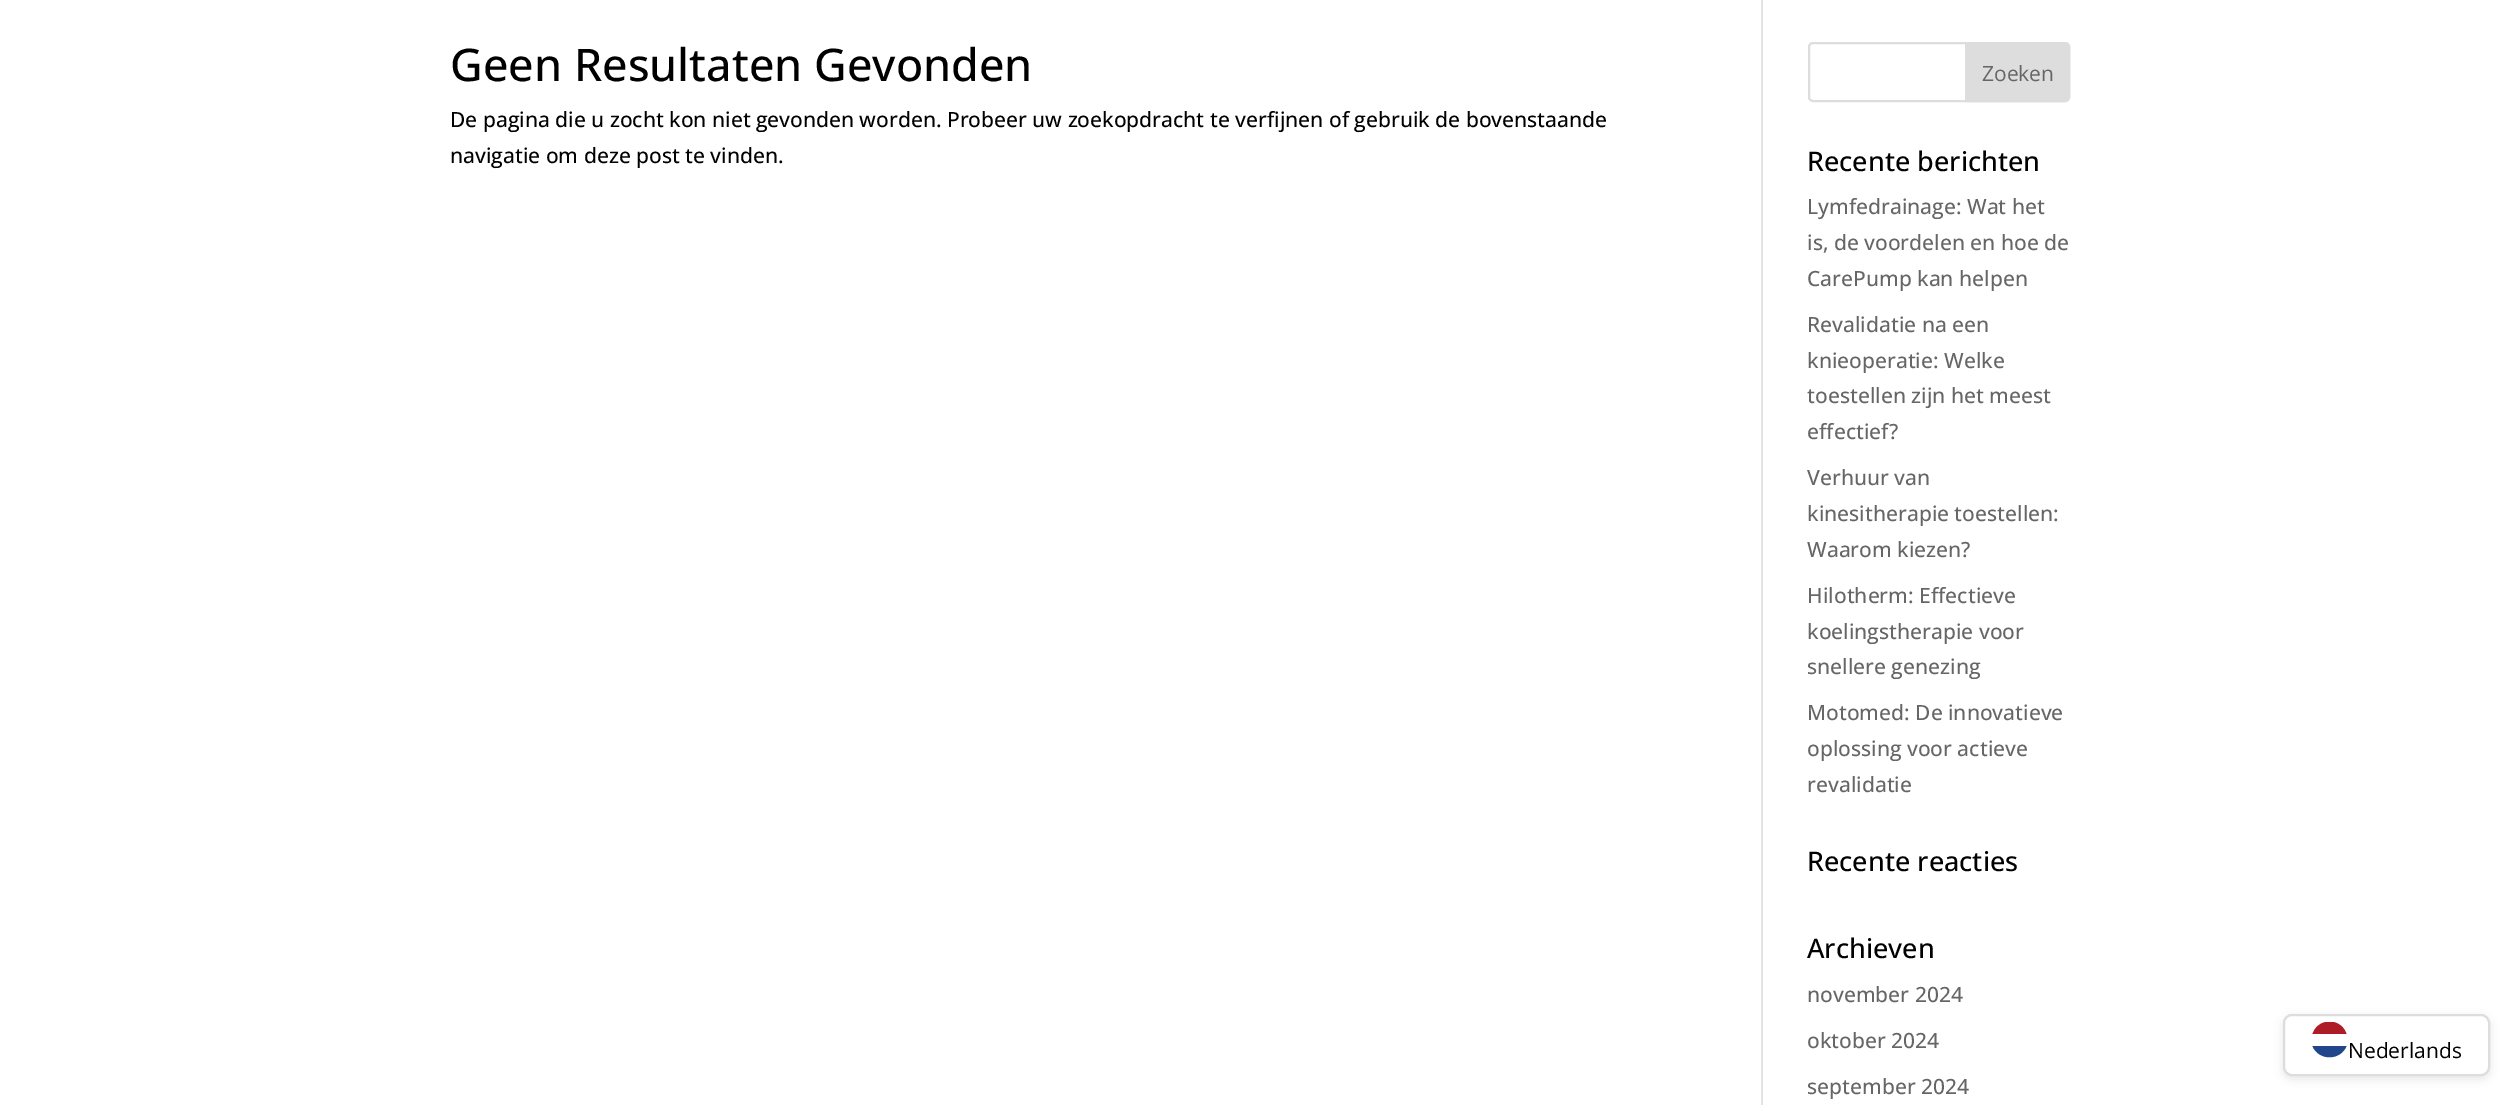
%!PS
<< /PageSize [2519 1105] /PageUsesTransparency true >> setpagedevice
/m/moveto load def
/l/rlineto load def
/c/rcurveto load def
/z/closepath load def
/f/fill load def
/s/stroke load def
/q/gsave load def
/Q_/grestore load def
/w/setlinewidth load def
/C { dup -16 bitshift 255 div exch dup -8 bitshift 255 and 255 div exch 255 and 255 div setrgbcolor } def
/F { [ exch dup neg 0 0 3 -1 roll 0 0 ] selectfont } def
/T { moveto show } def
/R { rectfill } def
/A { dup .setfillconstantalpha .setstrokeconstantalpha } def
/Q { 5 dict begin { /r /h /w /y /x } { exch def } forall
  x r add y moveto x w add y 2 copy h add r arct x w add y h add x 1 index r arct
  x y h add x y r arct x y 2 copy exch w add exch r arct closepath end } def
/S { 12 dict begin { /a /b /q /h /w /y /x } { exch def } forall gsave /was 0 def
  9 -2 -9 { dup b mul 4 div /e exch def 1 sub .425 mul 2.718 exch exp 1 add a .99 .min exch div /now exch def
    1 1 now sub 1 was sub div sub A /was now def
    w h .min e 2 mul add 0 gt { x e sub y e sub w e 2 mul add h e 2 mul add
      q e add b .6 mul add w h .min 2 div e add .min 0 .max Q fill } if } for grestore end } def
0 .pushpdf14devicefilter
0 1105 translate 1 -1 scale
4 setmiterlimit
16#FFFFFF C
0 0 2519 1105 R
16#E2E2E2 C
1761 0 2 1105 R
/OpenSans-Medium 45 F
16#000000 C
(Geen Resultaten Gevonden) 450 81 T
/OpenSans-Medium 21 F
(De pagina die u zocht kon niet gevonden worden. Probeer uw zoekopdracht te verfijnen of gebruik de bovenstaande) 450 127 T
(navigatie om deze post te vinden.) 450 163 T
16#DDDDDD C
2 w
1809 43 260 58 4 Q s
1966 43 m 99 0 l 2 0 4 2 4 4 c 0 50 l 0 2 -2 4 -4 4 c -99 0 l z q f Q_
s
/OpenSans-Regular 21 F
16#666666 C
(Zoeken) 1982 81 T
/OpenSans-Medium 27 F
16#000000 C
(Recente berichten) 1807 171 T
/OpenSans-Medium 21 F
16#666666 C
(Lymfedrainage: Wat het) 1807 214 T
(is, de voordelen en hoe de) 1807 250 T
(CarePump kan helpen) 1807 286 T
(Revalidatie na een) 1807 332 T
(knieoperatie: Welke) 1807 368 T
(toestellen zijn het meest) 1807 403 T
(effectief?) 1807 439 T
(Verhuur van) 1807 485 T
(kinesitherapie toestellen:) 1807 521 T
(Waarom kiezen?) 1807 557 T
(Hilotherm: Effectieve) 1807 603 T
(koelingstherapie voor) 1807 639 T
(snellere genezing) 1807 674 T
(Motomed: De innovatieve) 1807 720 T
(oplossing voor actieve) 1807 756 T
(revalidatie) 1807 792 T
/OpenSans-Medium 27 F
16#000000 C
(Recente reacties) 1807 871 T
(Archieven) 1807 958 T
/OpenSans-Medium 21 F
16#666666 C
(november 2024) 1807 1002 T
(oktober 2024) 1807 1048 T
(september 2024) 1807 1094 T
16#000000 C
2283 1017 207 62 9 4.5 .1 S
16#FFFFFF C
2284 1015 205 60 8 Q q f Q_
16#DDDDDD C
s
16#AE1C28 C
2312.5 1034 m 2 -6 6.5 -10.5 13 -12 c 8 0 l 6.5 1.5 11 6 13 12 c z f
16#21468B C
2346.5 1046 m -6 15 -28 15 -34 0 c z f
/OpenSans-Regular 21 F
16#000000 C
(Nederlands) 2348 1058 T
.poppdf14devicefilter showpage
